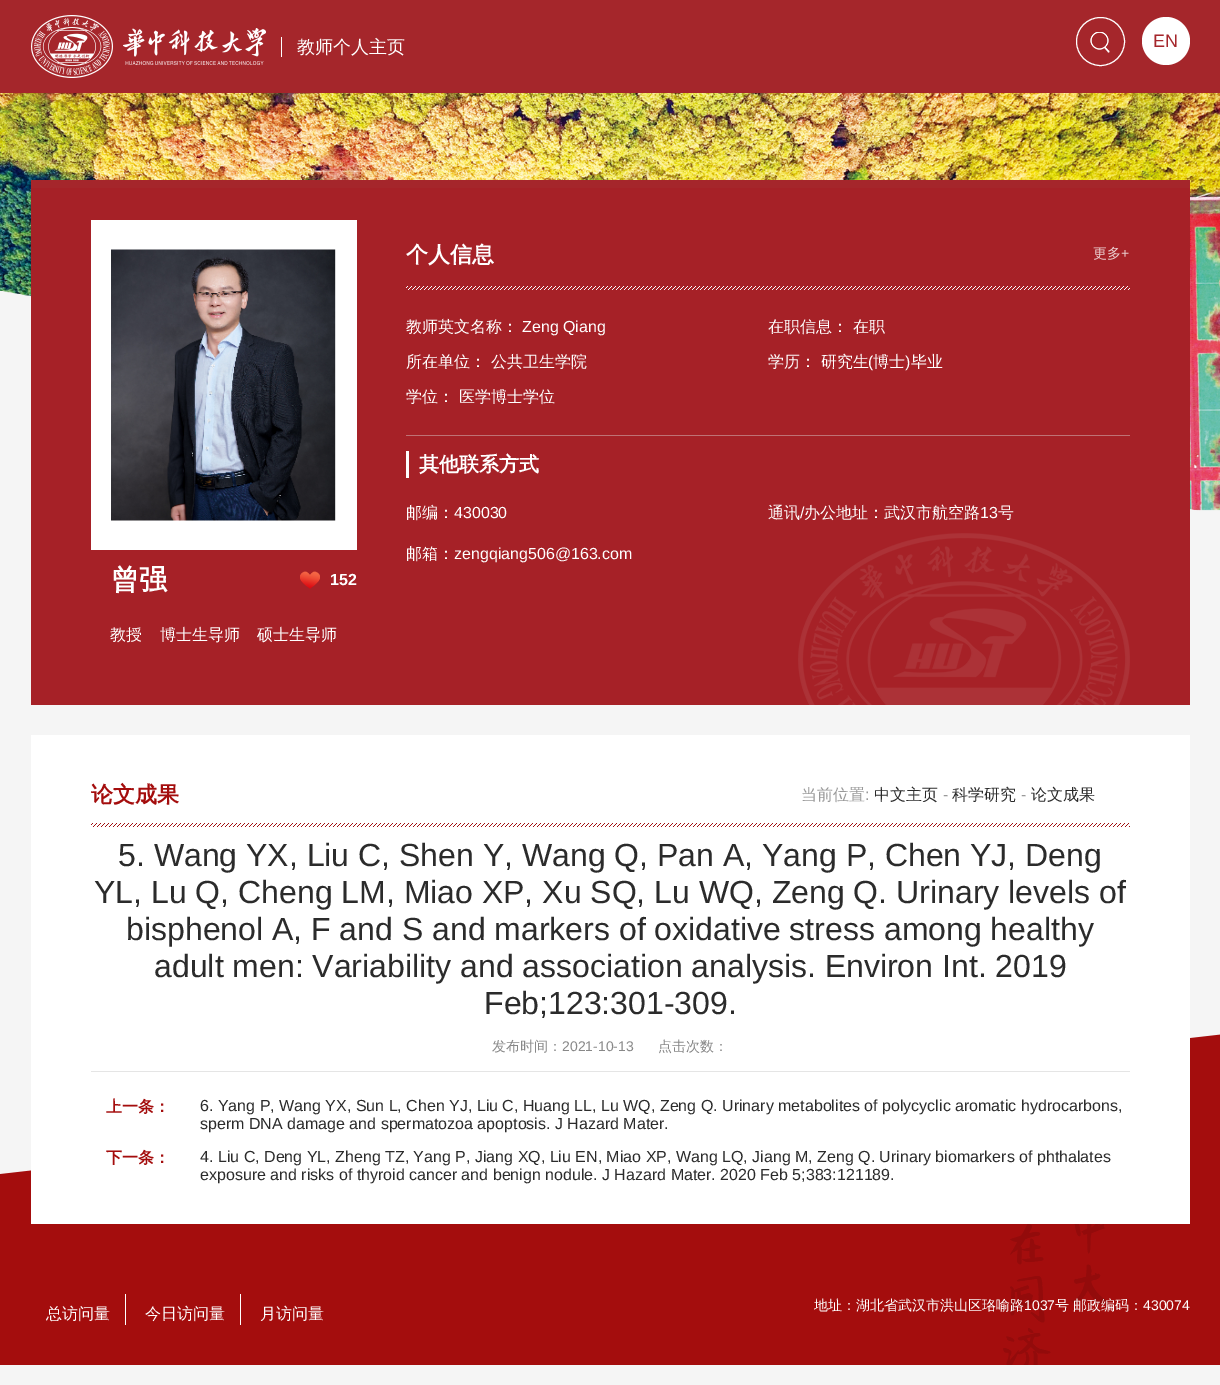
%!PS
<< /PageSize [1220 1385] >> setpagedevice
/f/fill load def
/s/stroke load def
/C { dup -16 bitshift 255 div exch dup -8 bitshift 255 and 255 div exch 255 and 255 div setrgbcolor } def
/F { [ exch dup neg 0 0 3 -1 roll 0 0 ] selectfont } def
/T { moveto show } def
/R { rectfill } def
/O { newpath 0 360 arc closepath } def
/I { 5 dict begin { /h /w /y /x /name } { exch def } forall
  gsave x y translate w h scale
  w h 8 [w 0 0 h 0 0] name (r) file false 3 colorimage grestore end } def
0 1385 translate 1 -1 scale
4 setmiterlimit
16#F5F5F5 C
0 0 1220 1385 R
16#A5262B C
0 0 1220 93 R
(1.rgb) 31 15 235 63 I
16#FFFFFF C
281 37 1 20 R
/WenQuanYiZenHei-Medium 18 F
(教师个人主页) 297 53 T
1100.5 41.5 24 O s
(2.rgb) 1090 32 20 21 I
1166 41 24 O f
/LiberationSans-Regular 18 F
16#A5262B C
(EN) 1153 47 T
(3.rgb) 0 93 1220 418 I
(4.rgb) 0 291 1199 220 I
31 180 1159 8 R
(5.rgb) 31 188 1159 517 I
16#BF7275 C
406 435 724 1 R
(6.rgb) 406 286 724 4 I
/WenQuanYiZenHei-Bold 22 F
16#FFFFFF C
(个人信息) 406 262 T
/WenQuanYiZenHei-Medium 14 F
16#ECD0D1 C
(更多) 1093 258 T
/LiberationSans-Regular 14 F
(+) 1121 258 T
/WenQuanYiZenHei-Medium 16 F
16#FFFFFF C
(教师英文名称：) 406 332 T
/LiberationSans-Regular 16 F
(Zeng Qiang) 522 332 T
/WenQuanYiZenHei-Medium 16 F
(在职信息： 在职) 768 332 T
(所在单位： 公共卫生学院) 406 367 T
(学历： 研究生) 768 367 T
/LiberationSans-Regular 16 F
(\() 868 367 T
/WenQuanYiZenHei-Medium 16 F
(博士) 873 367 T
/LiberationSans-Regular 16 F
(\)) 905 367 T
/WenQuanYiZenHei-Medium 16 F
(毕业) 911 367 T
(学位： 医学博士学位) 406 402 T
406 451 3 27 R
/WenQuanYiZenHei-Bold 20 F
(其他联系方式) 419 471 T
/WenQuanYiZenHei-Medium 16 F
(邮编：) 406 518 T
/LiberationSans-Regular 16 F
(430030) 454 518 T
/WenQuanYiZenHei-Medium 16 F
(通讯) 768 518 T
/LiberationSans-Regular 16 F
(/) 800 518 T
/WenQuanYiZenHei-Medium 16 F
(办公地址：武汉市航空路) 804 518 T
/LiberationSans-Regular 16 F
(13) 980 518 T
/WenQuanYiZenHei-Medium 16 F
(号) 998 518 T
(邮箱：) 406 559 T
/LiberationSans-Regular 16 F
(zengqiang506@163.com) 454 559 T
91 220 266 330 R
(7.rgb) 111 249 225 272 I
/WenQuanYiZenHei-Bold 28 F
(曾强) 111 589 T
(8.rgb) 300 571 20 18 I
/LiberationSans-Bold 16 F
(152) 330 585 T
/WenQuanYiZenHei-Medium 16 F
(教授) 110 640 T
(博士生导师) 160 640 T
(硕士生导师) 257 640 T
16#A40D0D C
0 1034 1220 331 R
(11.rgb) 0 994 1220 180 I
16#FFFFFF C
31 735 1159 489 R
(9.rgb) 91 823 1039 4 I
/WenQuanYiZenHei-Bold 22 F
16#A40D0D C
(论文成果) 91 802 T
/WenQuanYiZenHei-Medium 16 F
16#999999 C
(当前位置) 801 800 T
/LiberationSans-Regular 16 F
(:) 865 800 T
/WenQuanYiZenHei-Medium 16 F
16#2B2B2B C
(中文主页) 874 800 T
/LiberationSans-Regular 16 F
16#999999 C
(-) 943 800 T
/WenQuanYiZenHei-Medium 16 F
16#2B2B2B C
(科学研究) 952 800 T
/LiberationSans-Regular 16 F
16#999999 C
(-) 1021 800 T
/WenQuanYiZenHei-Medium 16 F
16#2B2B2B C
(论文成果) 1031 800 T
/LiberationSans-Regular 32 F
(5. Wang YX, Liu C, Shen Y, Wang Q, Pan A, Yang P, Chen YJ, Deng) 118 866 T
(YL, Lu Q, Cheng LM, Miao XP, Xu SQ, Lu WQ, Zeng Q. Urinary levels of) 94 903 T
(bisphenol A, F and S and markers of oxidative stress among healthy) 126 940 T
(adult men: Variability and association analysis. Environ Int. 2019) 154 977 T
(Feb;123:301-309.) 484 1014 T
16#E5E5E5 C
91 1071 1039 1 R
/WenQuanYiZenHei-Medium 14 F
16#888888 C
(发布时间：) 492 1051 T
/LiberationSans-Regular 14 F
(2021-10-13) 562 1051 T
/WenQuanYiZenHei-Medium 14 F
(点击次数：) 658 1051 T
/WenQuanYiZenHei-Bold 16 F
16#A40D0D C
(上一条：) 106 1112 T
/LiberationSans-Regular 16 F
16#2B2B2B C
(6. Yang P, Wang YX, Sun L, Chen YJ, Liu C, Huang LL, Lu WQ, Zeng Q. Urinary metabolites of polycyclic aromatic hydrocarbons,) 200 1111 T
(sperm DNA damage and spermatozoa apoptosis. J Hazard Mater.) 200 1129 T
/WenQuanYiZenHei-Bold 16 F
16#A40D0D C
(下一条：) 106 1163 T
/LiberationSans-Regular 16 F
16#2B2B2B C
(4. Liu C, Deng YL, Zheng TZ, Yang P, Jiang XQ, Liu EN, Miao XP, Wang LQ, Jiang M, Zeng Q. Urinary biomarkers of phthalates) 200 1162 T
(exposure and risks of thyroid cancer and benign nodule. J Hazard Mater. 2020 Feb 5;383:121189.) 200 1180 T
(10.rgb) 1003 1224 106 141 I
16#FFFFFF C
125 1294 1 31 R
/WenQuanYiZenHei-Medium 16 F
(总访问量) 46 1319 T
240 1294 1 31 R
(今日访问量) 145 1319 T
(月访问量) 260 1319 T
/WenQuanYiZenHei-Medium 14 F
(地址：湖北省武汉市洪山区珞喻路) 814 1310 T
/LiberationSans-Regular 14 F
(1037) 1024 1310 T
/WenQuanYiZenHei-Medium 14 F
(号 邮政编码：) 1055 1310 T
/LiberationSans-Regular 14 F
(430074) 1143 1310 T
showpage
